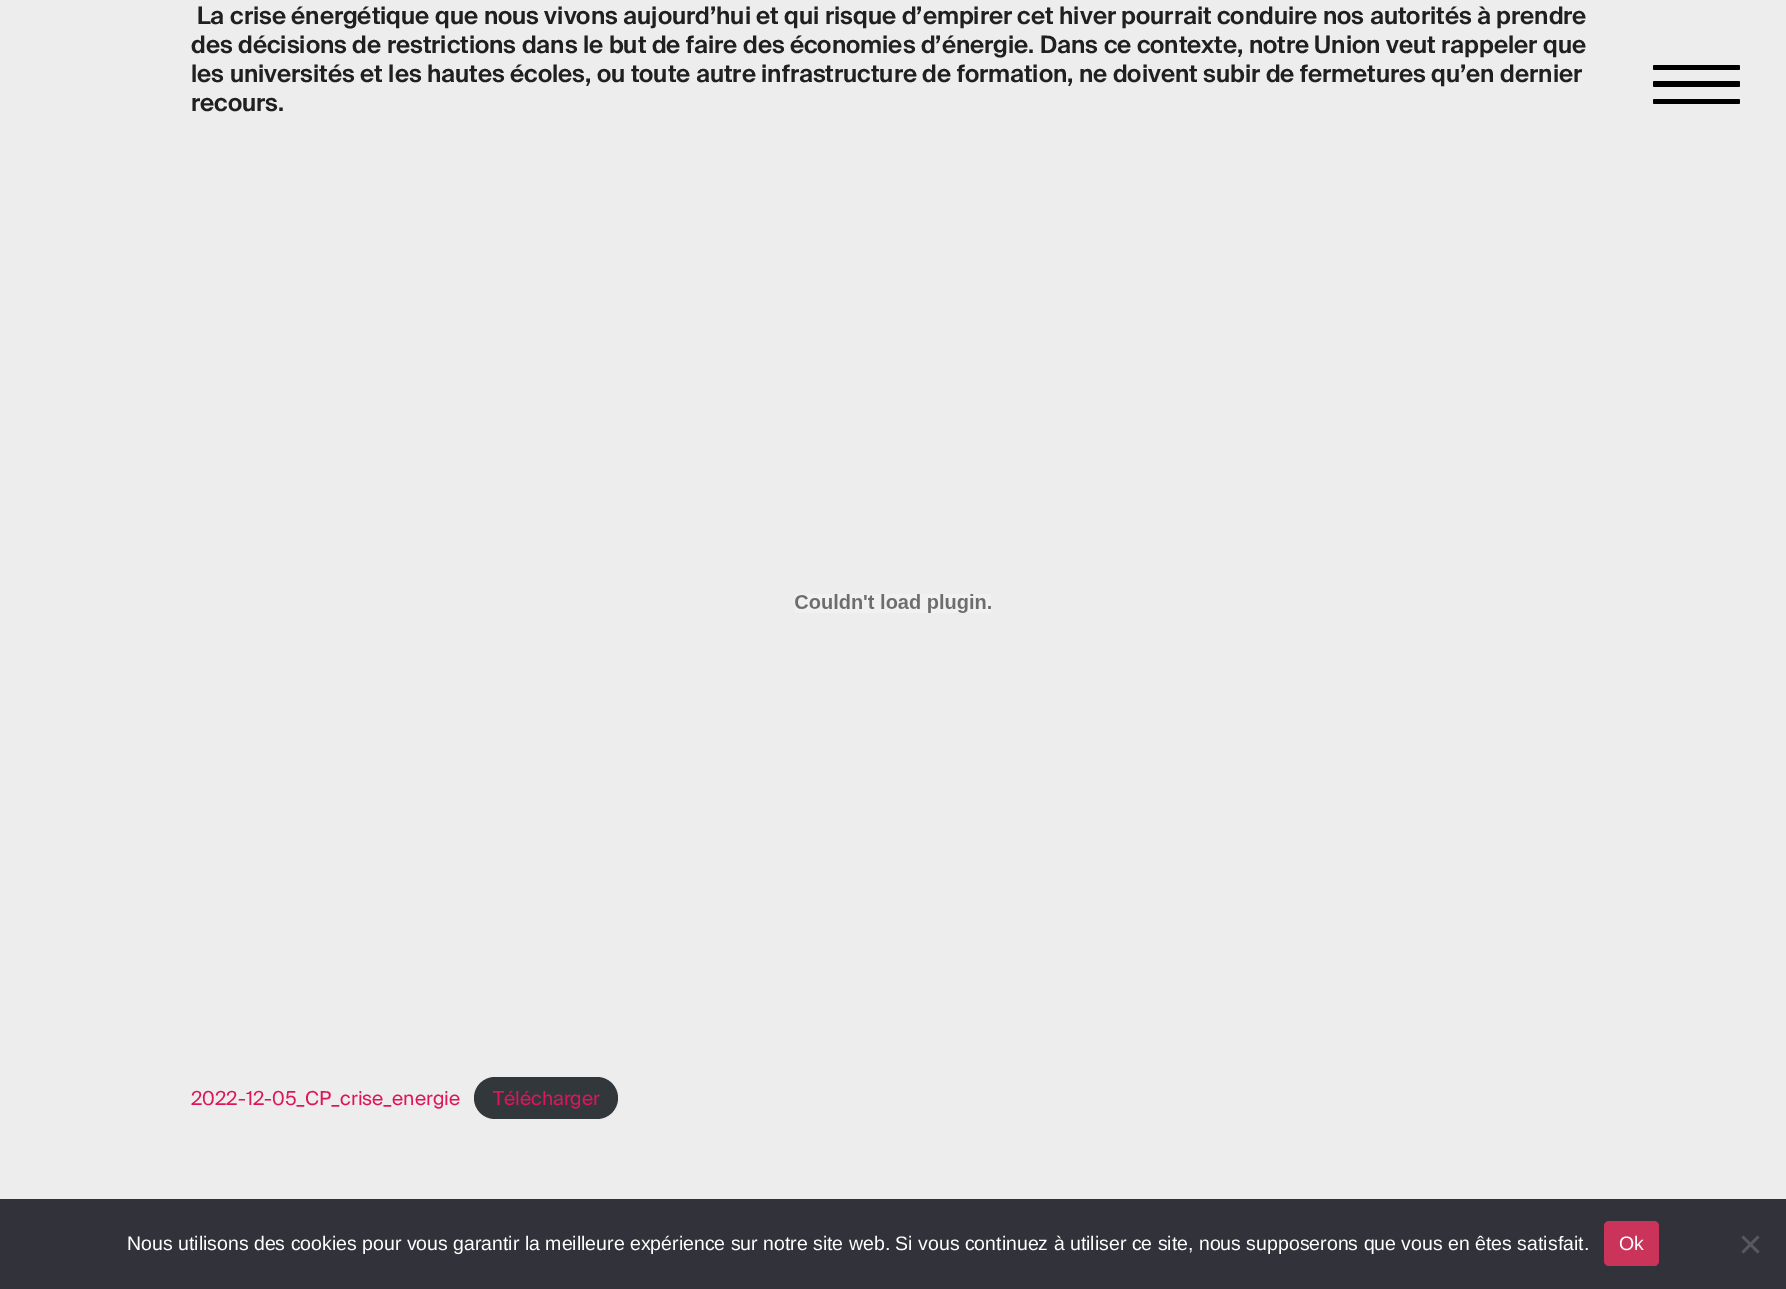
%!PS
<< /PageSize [1786 1289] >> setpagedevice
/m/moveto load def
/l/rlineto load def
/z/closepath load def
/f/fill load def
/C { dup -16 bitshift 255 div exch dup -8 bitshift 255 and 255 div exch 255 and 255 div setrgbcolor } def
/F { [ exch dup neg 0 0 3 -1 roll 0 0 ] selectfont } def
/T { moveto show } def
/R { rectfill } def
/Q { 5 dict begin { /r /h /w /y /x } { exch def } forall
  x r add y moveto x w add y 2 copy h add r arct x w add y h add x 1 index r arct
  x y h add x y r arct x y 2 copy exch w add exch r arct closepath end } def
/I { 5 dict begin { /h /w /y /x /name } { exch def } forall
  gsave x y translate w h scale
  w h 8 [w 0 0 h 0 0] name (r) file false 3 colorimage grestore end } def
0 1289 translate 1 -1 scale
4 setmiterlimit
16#EDEDED C
0 0 1786 1289 R
/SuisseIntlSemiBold-SemiBold 24 F
16#202020 C
(La crise énergétique que nous vivons aujourd’hui et qui risque d’empirer cet hiver pourrait conduire nos autorités à prendre) 197 24 T
(des décisions de restrictions dans le but de faire des économies d’énergie. Dans ce contexte, notre Union veut rappeler que) 191 53 T
(les universités et les hautes écoles, ou toute autre infrastructure de formation, ne doivent subir de fermetures qu’en dernier) 191 82 T
(recours.) 191 111 T
(1.rgb) 795 594 196 19 I
/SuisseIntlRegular-Regular 19.25 F
16#DD165C C
(2022-12-05_CP_crise_energie) 191 1105 T
16#32373C C
474 1077 144 42 21 Q f
16#DD165C C
(Télécharger) 493 1105 T
16#000000 C
1653 65 87 5 1.5 Q f
1653 81 87 6 1.5 Q f
1653 99 87 5 1.5 Q f
16#32323A C
0 1199 1786 90 R
/LiberationSans-Regular 19.5 F
16#FFFFFF C
(Nous utilisons des cookies pour vous garantir la meilleure expérience sur notre site web. Si vous continuez à utiliser ce site, nous supposerons que vous en êtes satisfait.) 127 1250 T
16#CA335A C
1604 1221 55 45 5 Q f
16#FFFFFF C
(Ok) 1619 1250 T
16#59595D C
1757.5 1235.5 m 2 2 l -16 16 l -2 -2 l z f
1741.5 1237.5 m 2 -2 l 16 16 l -2 2 l z f
showpage
